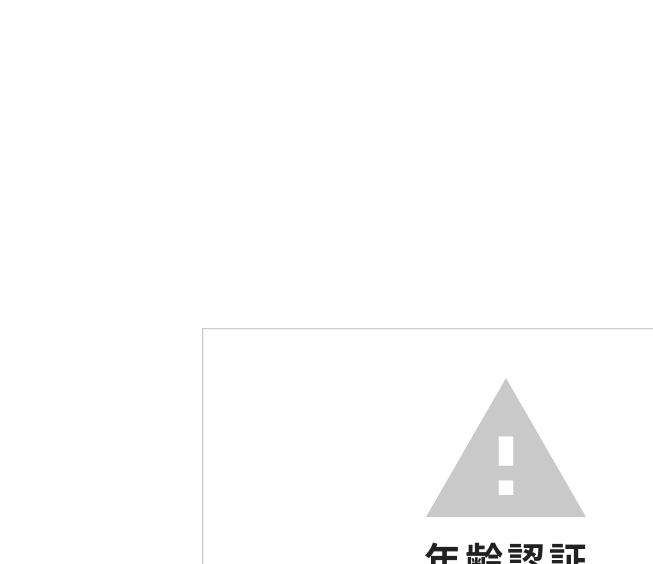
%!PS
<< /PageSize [653 564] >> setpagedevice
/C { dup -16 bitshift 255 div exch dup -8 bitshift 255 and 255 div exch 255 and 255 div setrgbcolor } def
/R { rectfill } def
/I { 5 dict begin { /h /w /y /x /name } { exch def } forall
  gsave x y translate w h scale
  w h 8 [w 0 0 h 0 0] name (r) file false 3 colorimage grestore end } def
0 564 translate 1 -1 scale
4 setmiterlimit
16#FFFFFF C
0 0 653 564 R
16#CCCCCC C
202.5 328.5 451 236 rectstroke
(1.rgb) 425 378 161 186 I
showpage
